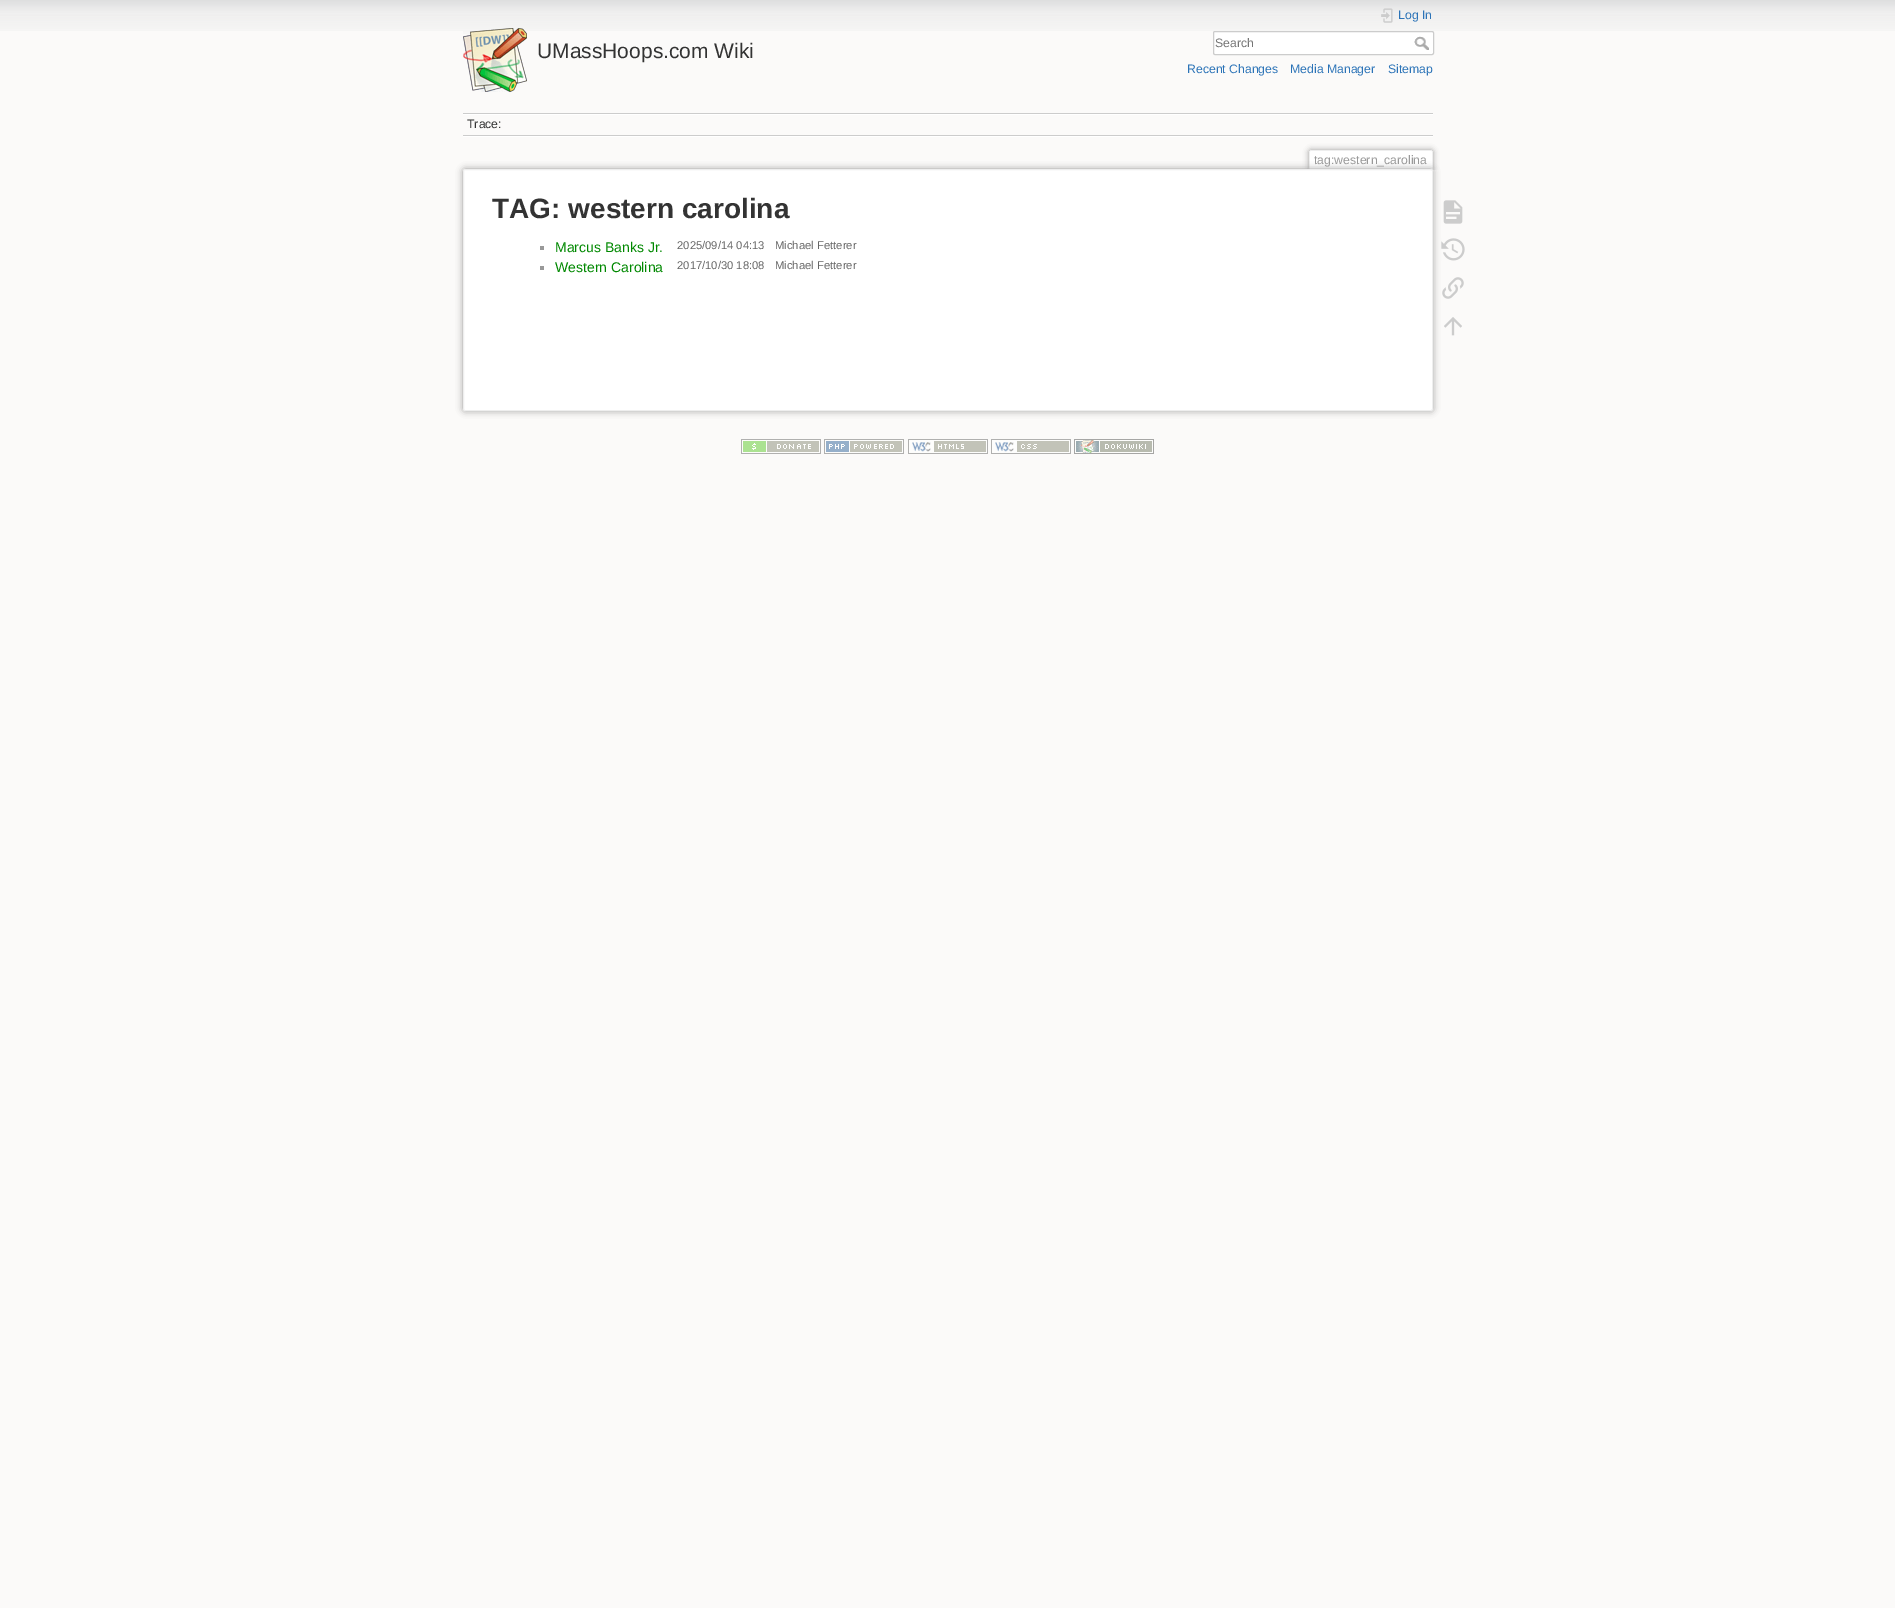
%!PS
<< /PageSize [1895 1608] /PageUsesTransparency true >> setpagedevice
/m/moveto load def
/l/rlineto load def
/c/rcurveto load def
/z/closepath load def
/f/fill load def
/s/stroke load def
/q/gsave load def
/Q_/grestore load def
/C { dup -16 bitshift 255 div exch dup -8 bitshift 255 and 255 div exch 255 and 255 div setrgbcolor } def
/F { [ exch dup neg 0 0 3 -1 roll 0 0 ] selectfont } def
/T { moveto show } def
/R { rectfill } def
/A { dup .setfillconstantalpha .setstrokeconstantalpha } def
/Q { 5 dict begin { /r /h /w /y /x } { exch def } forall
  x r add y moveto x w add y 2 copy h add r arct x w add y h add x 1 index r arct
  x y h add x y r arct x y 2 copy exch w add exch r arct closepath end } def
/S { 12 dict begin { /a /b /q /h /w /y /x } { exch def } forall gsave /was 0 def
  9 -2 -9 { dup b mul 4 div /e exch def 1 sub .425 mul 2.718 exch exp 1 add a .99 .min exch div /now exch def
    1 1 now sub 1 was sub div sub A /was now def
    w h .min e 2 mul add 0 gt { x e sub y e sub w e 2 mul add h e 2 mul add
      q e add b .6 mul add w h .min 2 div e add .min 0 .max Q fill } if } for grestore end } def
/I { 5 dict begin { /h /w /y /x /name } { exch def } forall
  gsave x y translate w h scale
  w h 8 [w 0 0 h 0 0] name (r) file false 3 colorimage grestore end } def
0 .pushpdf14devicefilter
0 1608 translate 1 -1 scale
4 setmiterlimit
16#FBFAF9 C
0 0 1895 1608 R
(1.rgb) 0 0 1895 31 I
(2.rgb) 463 28 64 64 I
/LiberationSans-Regular 21 F
16#333333 C
(UMassHoops.com Wiki) 537 58 T
(3.rgb) 1381 8 12 15 I
/LiberationSans-Regular 12.25 F
16#2B73B7 C
(Log In) 1398 19 T
16#FFFFFF C
1213.5 31.5 220 23 1.5 Q q f Q_
16#CCCCCC C
s
16#757575 C
(Search) 1215 47 T
(4.rgb) 1414 36 15 14 I
16#2B73B7 C
(Recent Changes) 1187 73 T
(Media Manager) 1290 73 T
(Sitemap) 1388 73 T
16#CCCCCC C
463 113 970 1 R
16#FFFFFF C
463 136 970 1 R
463 114 970 1 R
16#CCCCCC C
463 135 970 1 R
16#333333 C
(Trace:) 467 128 T
q
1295 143 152 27 rectclip
16#999999 C
1309 150 124 20 2 3 1 S
Q_
16#FFFFFF C
1311 151 m 120 0 l .5 0 1 .5 1 1 c 0 18 l -122 0 l 0 -18 l 0 -.5 .5 -1 1 -1 c z f
16#EEEEEE C
1310 150 122 1 R
1432 151 1 19 R
1309 151 1 19 R
16#999999 C
(tag:western_carolina) 1314 164 T
463 169 970 242 2 3.5 1 S
16#FFFFFF C
463.5 169.5 969 241 1.5 Q q f Q_
16#EEEEEE C
s
/LiberationSans-Bold 28 F
16#333333 C
(TAG: western carolina) 492 218 T
16#999999 C
540 246 4 4 R
/LiberationSans-Regular 14 F
16#008800 C
(Marcus Banks Jr.) 555 252 T
/LiberationSans-Regular 11.25 F
16#666666 C
(2025/09/14 04:13) 677 249 T
(Michael Fetterer) 775 249 T
16#999999 C
540 266 4 4 R
/LiberationSans-Regular 14 F
16#008800 C
(Western Carolina) 555 272 T
/LiberationSans-Regular 11.25 F
16#666666 C
(2017/10/30 18:08) 677 269 T
(Michael Fetterer) 775 269 T
(5.rgb) 1443 200 20 24 I
(6.rgb) 1441 238 24 23 I
(7.rgb) 1442 277 22 22 I
(8.rgb) 1444 317 18 19 I
(9.rgb) 741 439 80 15 I
(10.rgb) 824 439 80 15 I
(11.rgb) 908 439 80 15 I
(12.rgb) 991 439 80 15 I
(13.rgb) 1074 439 80 15 I
.poppdf14devicefilter showpage
